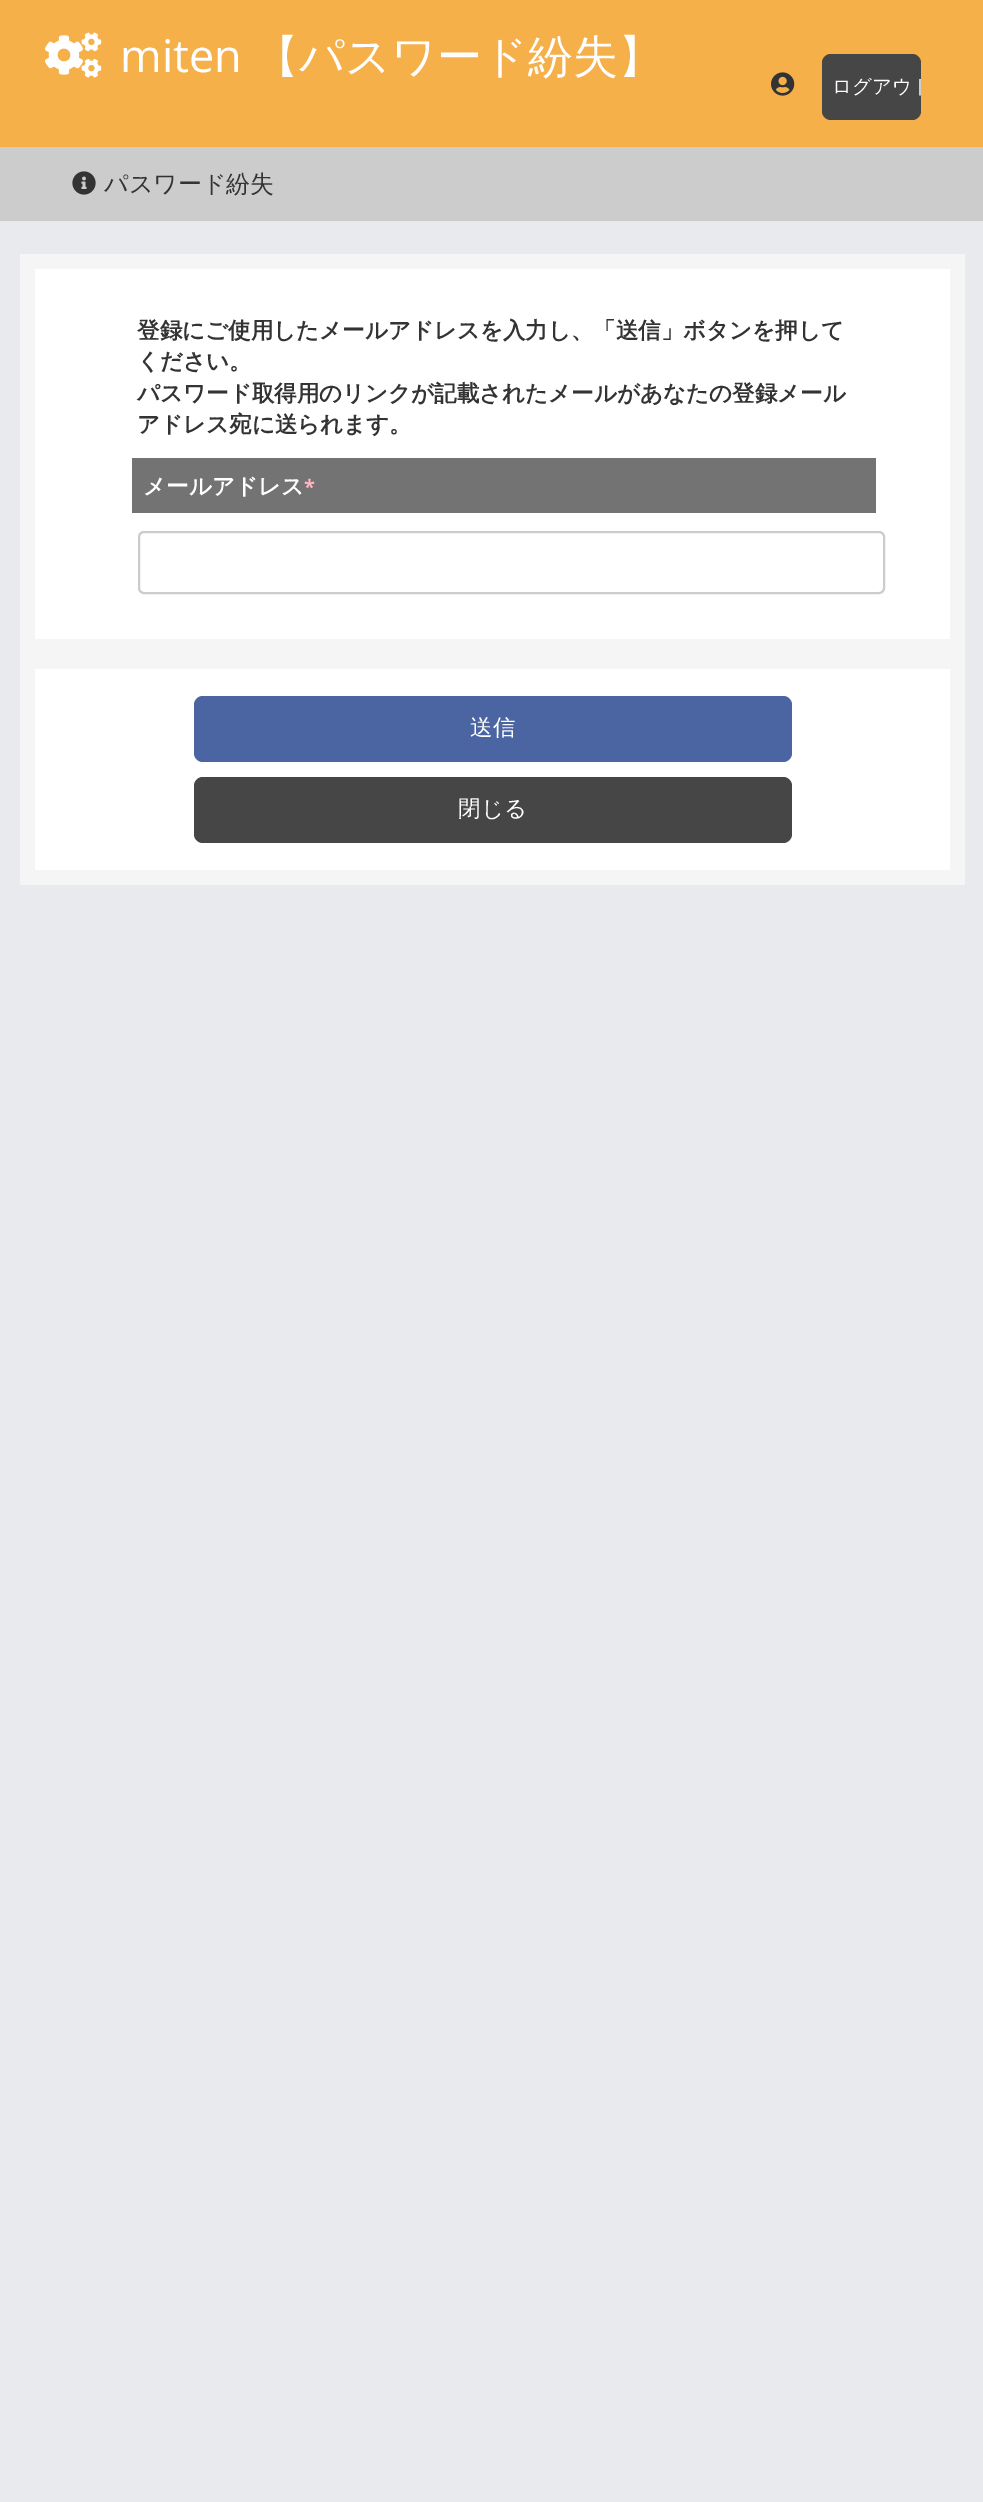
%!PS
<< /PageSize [983 2502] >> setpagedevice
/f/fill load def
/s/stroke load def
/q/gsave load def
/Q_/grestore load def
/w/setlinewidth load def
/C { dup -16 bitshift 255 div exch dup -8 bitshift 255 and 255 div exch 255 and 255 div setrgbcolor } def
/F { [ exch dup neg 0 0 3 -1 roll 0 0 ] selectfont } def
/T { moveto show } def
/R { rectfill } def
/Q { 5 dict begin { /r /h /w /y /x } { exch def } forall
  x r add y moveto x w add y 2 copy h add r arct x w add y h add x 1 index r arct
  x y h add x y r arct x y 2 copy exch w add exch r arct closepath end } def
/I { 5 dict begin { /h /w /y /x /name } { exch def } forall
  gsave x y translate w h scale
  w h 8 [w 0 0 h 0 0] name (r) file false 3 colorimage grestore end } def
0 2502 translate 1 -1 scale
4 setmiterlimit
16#E8EAEE C
0 0 983 2502 R
16#F5B049 C
0 0 983 147 R
(1.rgb) 45 32 57 46 I
/OpenSans-Regular 45 F
16#FFFFFF C
(miten) 120 72 T
/WenQuanYiZenHei-Medium 45 F
(【パスワード紛失】) 254 72 T
(2.rgb) 771 72 24 24 I
16#464646 C
822 54 99 66 9 Q f
q
822 54 99 66 9 Q clip newpath
/WenQuanYiZenHei-Medium 19.5 F
16#FFFFFF C
(ログアウト) 832 93 T
Q_
16#CCCCCC C
0 147 983 74 R
(3.rgb) 72 171 24 24 I
/WenQuanYiZenHei-Medium 24 F
16#333333 C
(パスワード紛失) 104 192 T
16#F5F5F5 C
20 254 945 631 R
16#FFFFFF C
35 269 915 370 R
/WenQuanYiZenHei-Bold 22.5 F
16#333333 C
(登録にご使用したメールアドレスを入力し、「送信」ボタンを押して) 137 338 T
(ください。) 137 369 T
(パスワード取得用のリンクが記載されたメールがあなたの登録メール) 137 401 T
(アドレス宛に送られます。) 137 432 T
16#737373 C
132 458 744 55 R
16#FFFFFF C
(メールアドレス) 143 494 T
/OpenSans-Bold 20 F
16#FFB6C1 C
(*) 304 494 T
16#CCCCCC C
2 w
139 532 745 61 5 Q s
16#FFFFFF C
35 669 915 201 R
16#4A65A2 C
194 696 598 66 9 Q f
/WenQuanYiZenHei-Medium 22.5 F
16#FFFFFF C
(送信) 470 735 T
16#464646 C
194 777 598 66 9 Q f
16#FFFFFF C
(閉じる) 458 816 T
showpage
